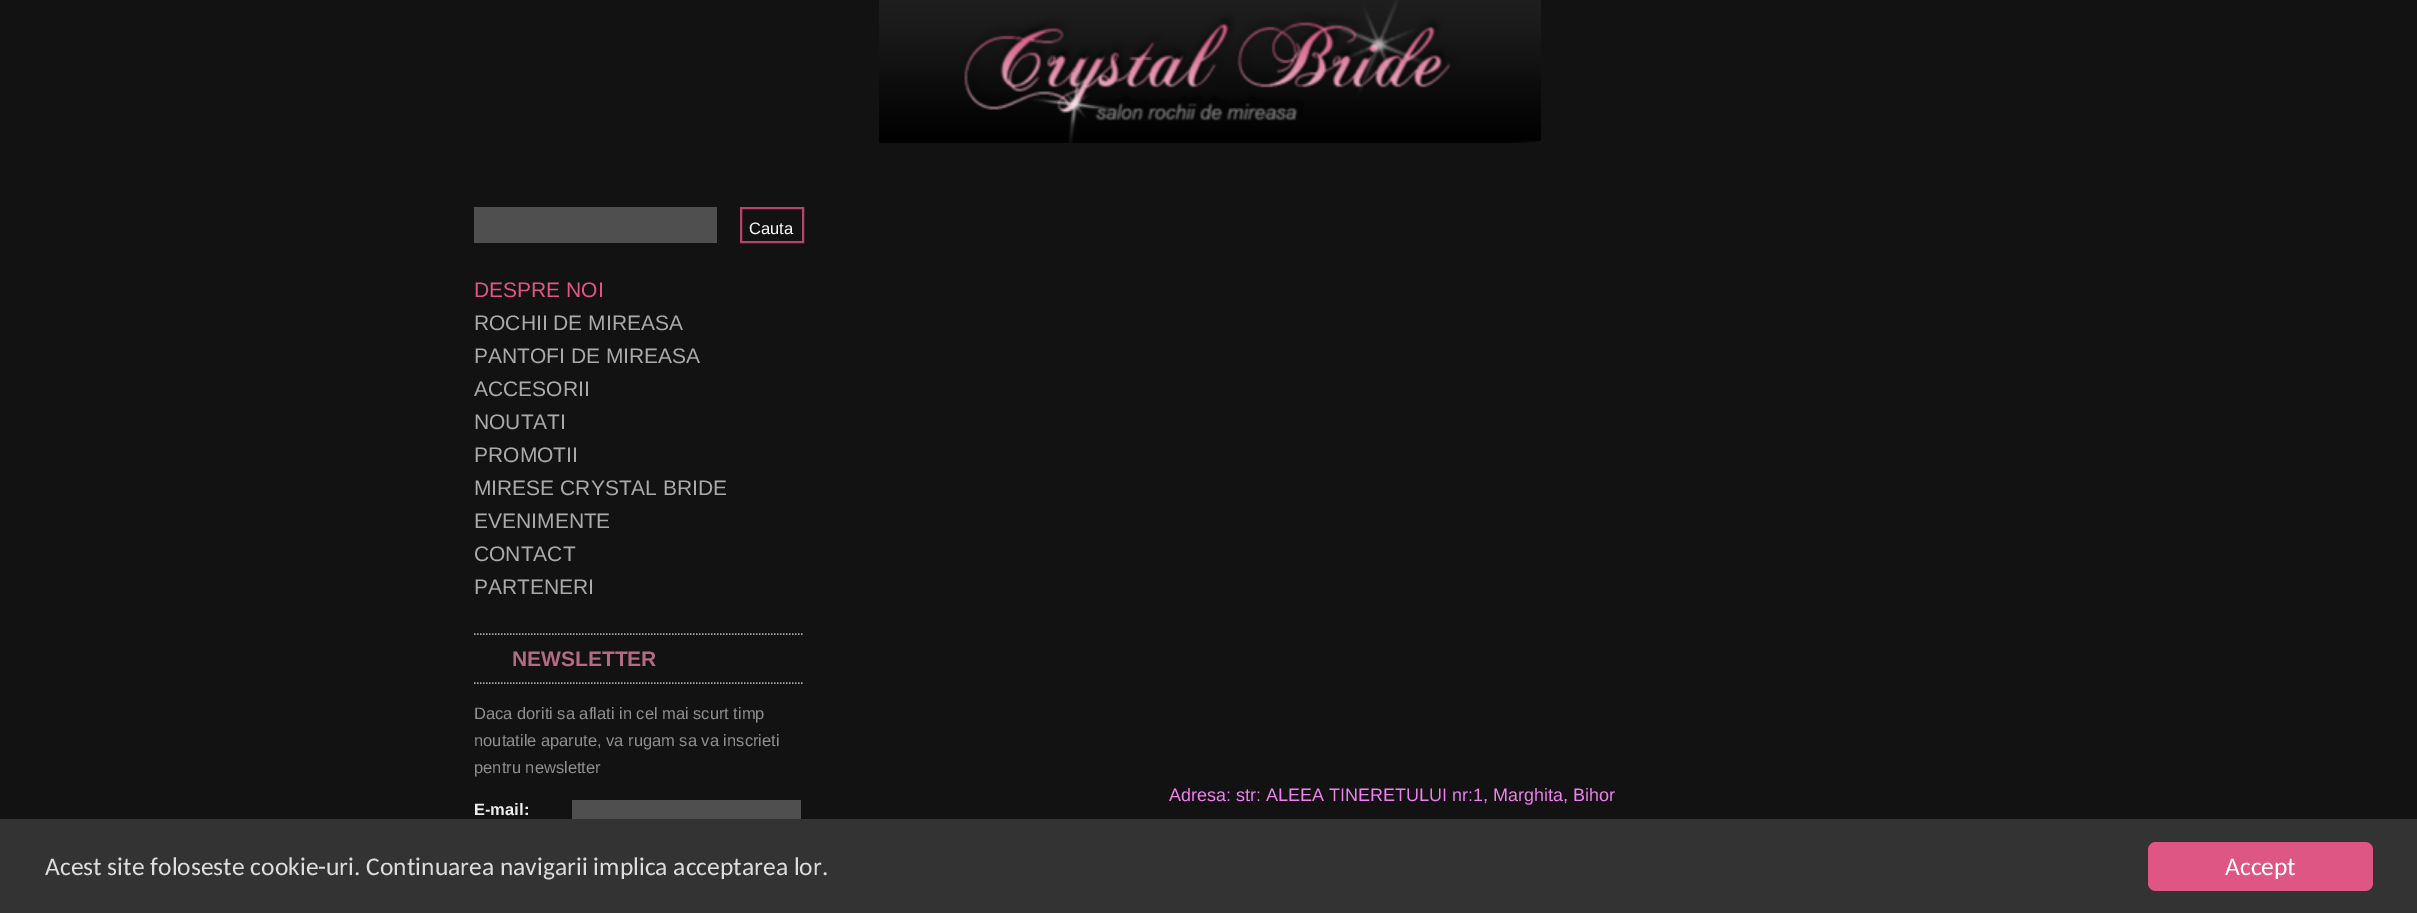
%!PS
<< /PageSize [2417 913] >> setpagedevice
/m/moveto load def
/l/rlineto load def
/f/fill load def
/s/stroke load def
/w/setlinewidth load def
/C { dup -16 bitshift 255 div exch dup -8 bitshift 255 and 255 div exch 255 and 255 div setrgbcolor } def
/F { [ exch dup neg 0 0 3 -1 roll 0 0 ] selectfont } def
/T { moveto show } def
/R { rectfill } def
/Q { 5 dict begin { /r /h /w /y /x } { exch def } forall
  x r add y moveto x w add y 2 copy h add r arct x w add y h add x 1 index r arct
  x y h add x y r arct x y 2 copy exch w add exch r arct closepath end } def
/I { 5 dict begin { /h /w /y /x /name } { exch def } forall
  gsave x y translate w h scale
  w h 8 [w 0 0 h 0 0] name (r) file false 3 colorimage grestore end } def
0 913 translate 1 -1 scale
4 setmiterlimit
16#121212 C
0 0 2417 913 R
(1.rgb) 879 0 662 143 I
16#4F4F4F C
474 207 243 36 R
16#B2466A C
2 w
741 208 62 34 rectstroke
/LiberationSans-Regular 16.5 F
16#FFFFFF C
(Cauta) 749 234 T
/LiberationSans-Regular 21 F
16#DE5684 C
(DESPRE NOI) 474 297 T
16#AAAAAA C
(ROCHII DE MIREASA) 474 330 T
(PANTOFI DE MIREASA) 474 363 T
(ACCESORII) 474 396 T
(NOUTATI) 474 429 T
(PROMOTII) 474 462 T
(MIRESE CRYSTAL BRIDE) 474 495 T
(EVENIMENTE) 474 528 T
(CONTACT) 474 561 T
(PARTENERI) 474 594 T
1.5 w
[1.5 1.5] 0 setdash
474 634 m 330 0 l s
474 683 m 330 0 l s
/LiberationSans-Bold 21 F
16#B36A82 C
(NEWSLETTER) 512 666 T
/LiberationSans-Regular 16.5 F
16#8F8F8F C
(Daca doriti sa aflati in cel mai scurt timp) 474 719 T
(noutatile aparute, va rugam sa va inscrieti) 474 746 T
(pentru newsletter) 474 773 T
/LiberationSans-Bold 16.5 F
16#EEEEEE C
(E-mail:) 474 815 T
16#4F4F4F C
572 800 229 19 R
/LiberationSans-Regular 18 F
16#EE82EE C
(Adresa: str: ALEEA TINERETULUI nr:1, Marghita, Bihor) 1169 801 T
16#333333 C
0 819 2417 94 R
/Carlito-Regular 25.5 F
16#DDDDDD C
(Acest site foloseste cookie-uri. Continuarea navigarii implica acceptarea lor.) 45 875 T
16#DE5684 C
2148 842 225 49 8 Q f
16#FFFFFF C
(Accept) 2225 875 T
showpage
